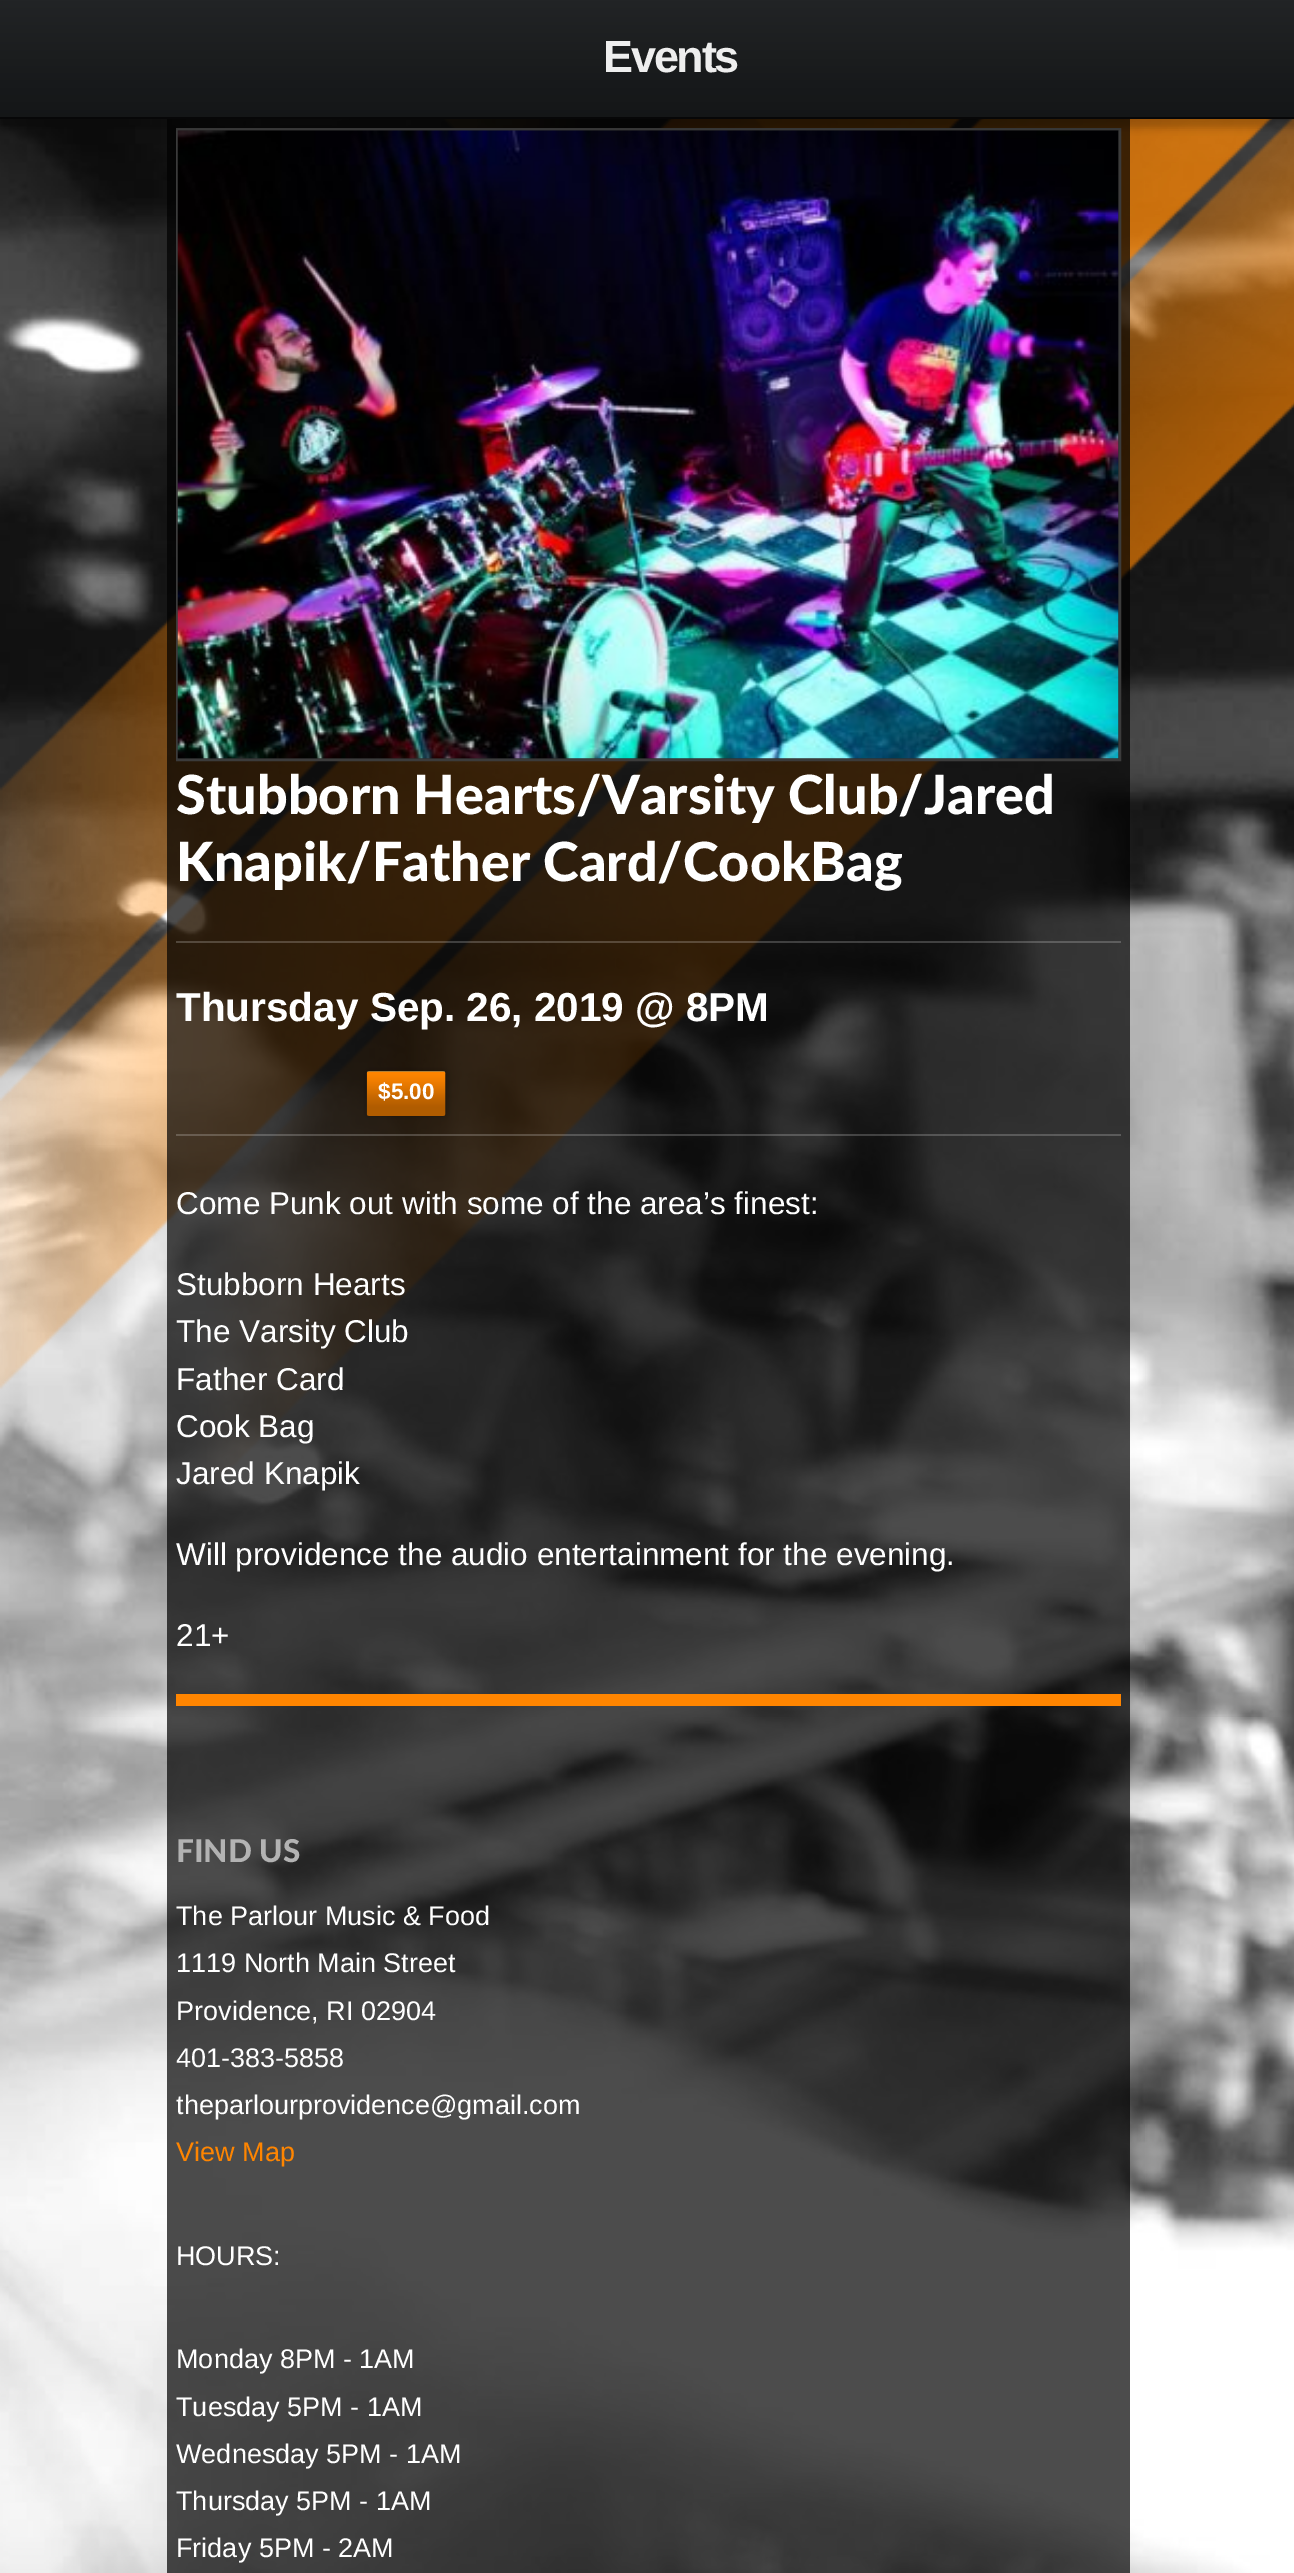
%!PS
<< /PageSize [1294 2573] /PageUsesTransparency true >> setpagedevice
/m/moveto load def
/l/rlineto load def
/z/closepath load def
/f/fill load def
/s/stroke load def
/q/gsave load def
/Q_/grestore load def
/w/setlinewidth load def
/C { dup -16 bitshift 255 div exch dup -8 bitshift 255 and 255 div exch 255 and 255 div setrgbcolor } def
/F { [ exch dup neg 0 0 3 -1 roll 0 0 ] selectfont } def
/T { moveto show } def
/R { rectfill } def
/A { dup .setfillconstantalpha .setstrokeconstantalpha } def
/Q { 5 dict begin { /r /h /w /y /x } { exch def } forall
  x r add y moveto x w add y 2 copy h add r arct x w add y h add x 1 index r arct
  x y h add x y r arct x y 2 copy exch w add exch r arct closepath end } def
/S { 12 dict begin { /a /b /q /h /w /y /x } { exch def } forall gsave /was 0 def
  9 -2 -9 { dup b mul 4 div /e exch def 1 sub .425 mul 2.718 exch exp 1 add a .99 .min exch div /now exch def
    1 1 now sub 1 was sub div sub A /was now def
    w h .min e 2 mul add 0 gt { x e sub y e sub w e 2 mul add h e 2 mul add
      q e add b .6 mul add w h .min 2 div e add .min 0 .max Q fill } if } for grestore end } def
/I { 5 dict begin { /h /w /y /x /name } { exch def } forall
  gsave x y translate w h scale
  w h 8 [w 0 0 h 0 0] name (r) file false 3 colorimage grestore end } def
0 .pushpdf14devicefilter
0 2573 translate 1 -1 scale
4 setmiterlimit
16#FFFFFF C
0 0 1294 2573 R
(1.rgb) 0 119 1294 2454 I
(2.rgb) 0 119 1294 1372 I
0.7 A
16#000000 C
167 119 963 1575 R
1 A
16#323232 C
177 129 m 943 0 l 0 631 l -943 0 l z q f Q_
16#3B3B3B C
2 w
s
(3.rgb) 177 130 942 629 I
16#000000 C
0 9 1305 119 0 3.5 .2 S
q 0 0 m 1294 0 l 0 117 l -1294 0 l z clip newpath
<< /ShadingType 2 /ColorSpace /DeviceRGB /Coords [0 117 0 0] /Extend [true true] /Function << /FunctionType 3 /Domain [0 1] /Functions [<< /FunctionType 2 /Domain [0 1] /C0 [.078 .086 .09] /C1 [.078 .086 .09] /N 1 >> << /FunctionType 2 /Domain [0 1] /C0 [.078 .086 .09] /C1 [.133 .141 .149] /N 1 >>] /Bounds [.01] /Encode [0 1 0 1] >> >> shfill Q_
16#070708 C
0 117 1294 2 R
/LiberationSans-Bold 45 F
16#EEEEEE C
603 72 m -2.25 0 (Events) ashow
/Lato-Black 54 F
16#FFFFFF C
(Stubborn Hearts/Varsity Club/Jared) 176 814 T
(Knapik/Father Card/CookBag) 176 881 T
0.2 A
176 941 945 2 R
176 1134 945 2 R
/LiberationSans-Bold 40.5 F
1 A
(Thursday Sep. 26, 2019 @ 8PM) 176 1021 T
16#000000 C
367 1071 79 45 2 3.5 .3 S
(4.rgb) 366 1071 80 45 I
/LiberationSans-Bold 22.5 F
16#FFFFFF C
($5.00) 378 1099 T
/LiberationSans-Regular 31.5 F
(Come Punk out with some of the area’s finest:) 176 1214 T
(Stubborn Hearts) 176 1295 T
(The Varsity Club) 176 1342 T
(Father Card) 176 1390 T
(Cook Bag) 176 1437 T
(Jared Knapik) 176 1484 T
(Will providence the audio entertainment for the evening.) 176 1565 T
(21+) 176 1646 T
0.7 A
16#000000 C
167 1694 963 879 R
1 A
16#FF8500 C
176 1694 945 12 R
/Lato-Black 31.5 F
16#B3B3B3 C
(FIND US) 176 1862 T
/LiberationSans-Regular 27 F
16#FFFFFF C
(The Parlour Music & Food) 176 1925 T
(1119 North Main Street) 176 1972 T
(Providence, RI 02904) 176 2020 T
(401-383-5858) 176 2067 T
(theparlourprovidence@gmail.com) 176 2114 T
16#FF8500 C
(View Map) 176 2161 T
16#FFFFFF C
(HOURS:) 176 2265 T
(Monday 8PM - 1AM) 176 2368 T
(Tuesday 5PM - 1AM) 176 2416 T
(Wednesday 5PM - 1AM) 176 2463 T
(Thursday 5PM - 1AM) 176 2510 T
(Friday 5PM - 2AM) 176 2557 T
.poppdf14devicefilter showpage
